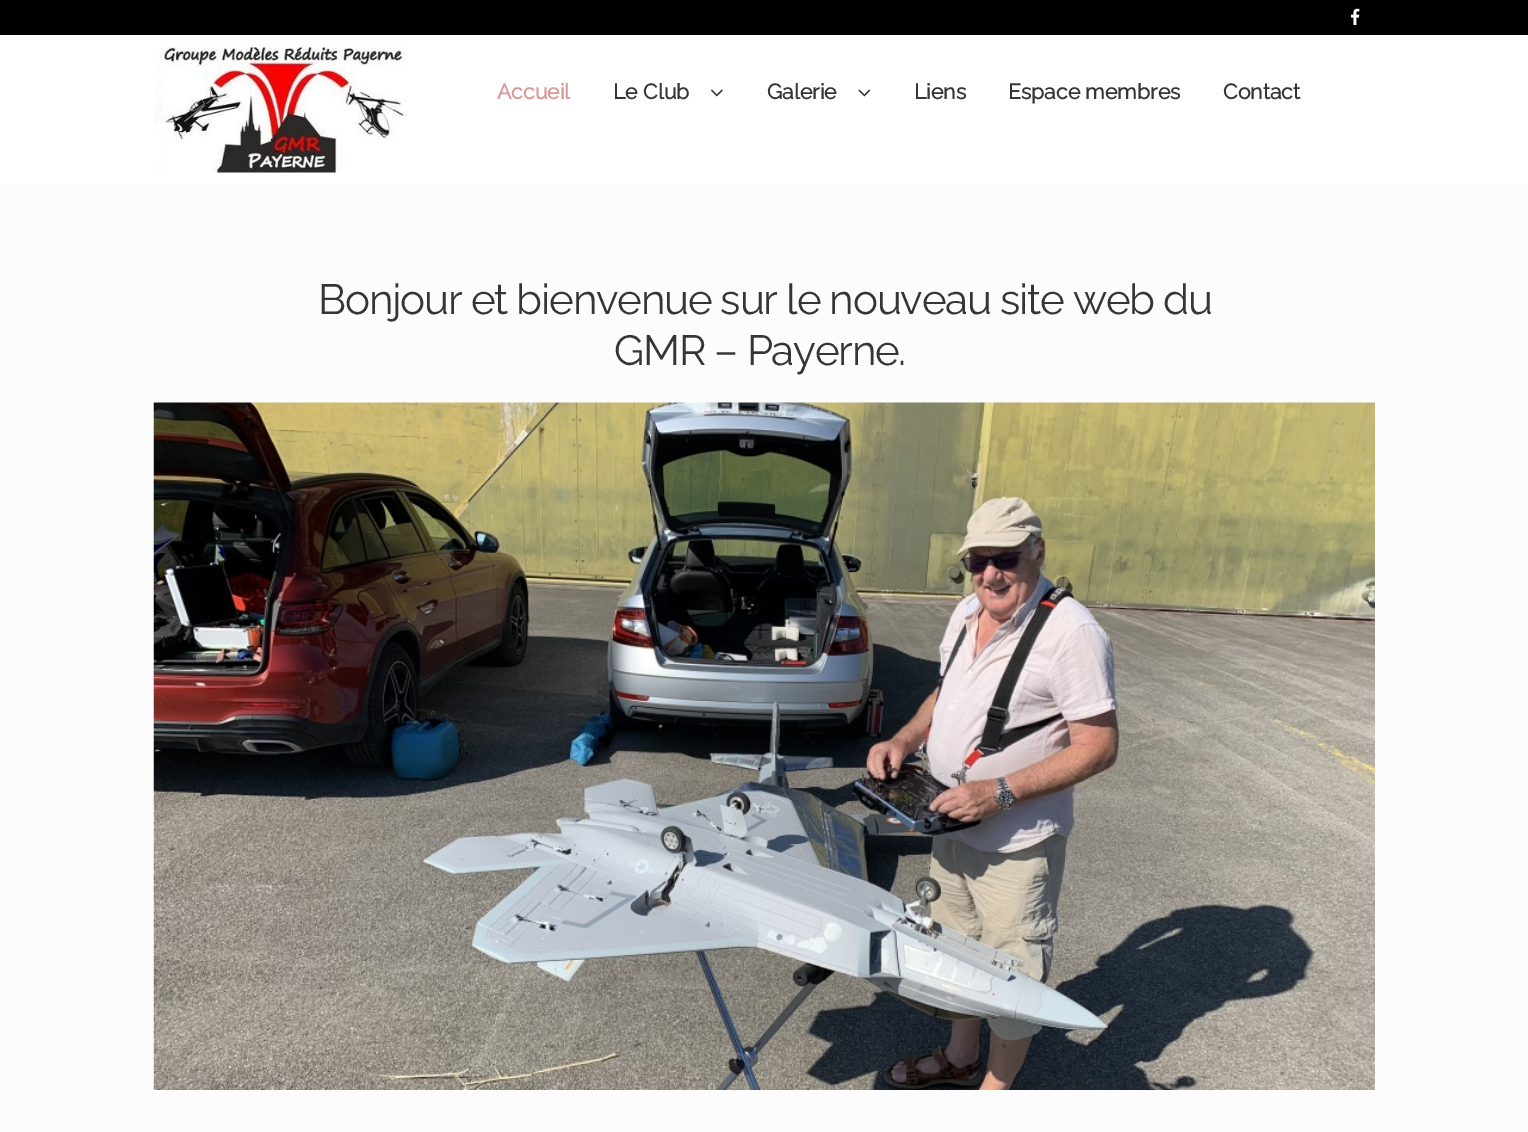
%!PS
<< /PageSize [1528 1132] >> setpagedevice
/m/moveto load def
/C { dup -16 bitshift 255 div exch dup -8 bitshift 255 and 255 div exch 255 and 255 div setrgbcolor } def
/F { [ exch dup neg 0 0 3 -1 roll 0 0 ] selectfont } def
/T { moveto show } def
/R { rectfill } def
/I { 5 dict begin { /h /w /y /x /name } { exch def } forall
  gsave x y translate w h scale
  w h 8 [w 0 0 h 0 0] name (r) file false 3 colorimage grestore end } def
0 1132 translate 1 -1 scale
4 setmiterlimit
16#FCFCFC C
0 0 1528 1132 R
16#000000 C
0 0 1528 35 R
(1.rgb) 1350 8 10 17 I
16#FFFFFF C
0 35 1528 150 R
(2.rgb) 154 47 252 126 I
/Raleway-Bold 21.25 F
16#DD9696 C
(Accueil) 497 99 T
16#353535 C
(Le Club) 613 99 T
(3.rgb) 711 89 12 8 I
(Galerie) 767 99 T
(4.rgb) 858 89 13 8 I
(Liens) 914 99 T
(Espace membres) 1008 99 T
(Contact) 1223 99 T
/Raleway-Thin 42.1 F
318 314 m -1.25 0 (Bonjour et bienvenue sur le nouveau site web du) ashow
614 365 m -1.25 0 (GMR – Payerne.) ashow
(5.rgb) 153 402 1222 688 I
showpage
